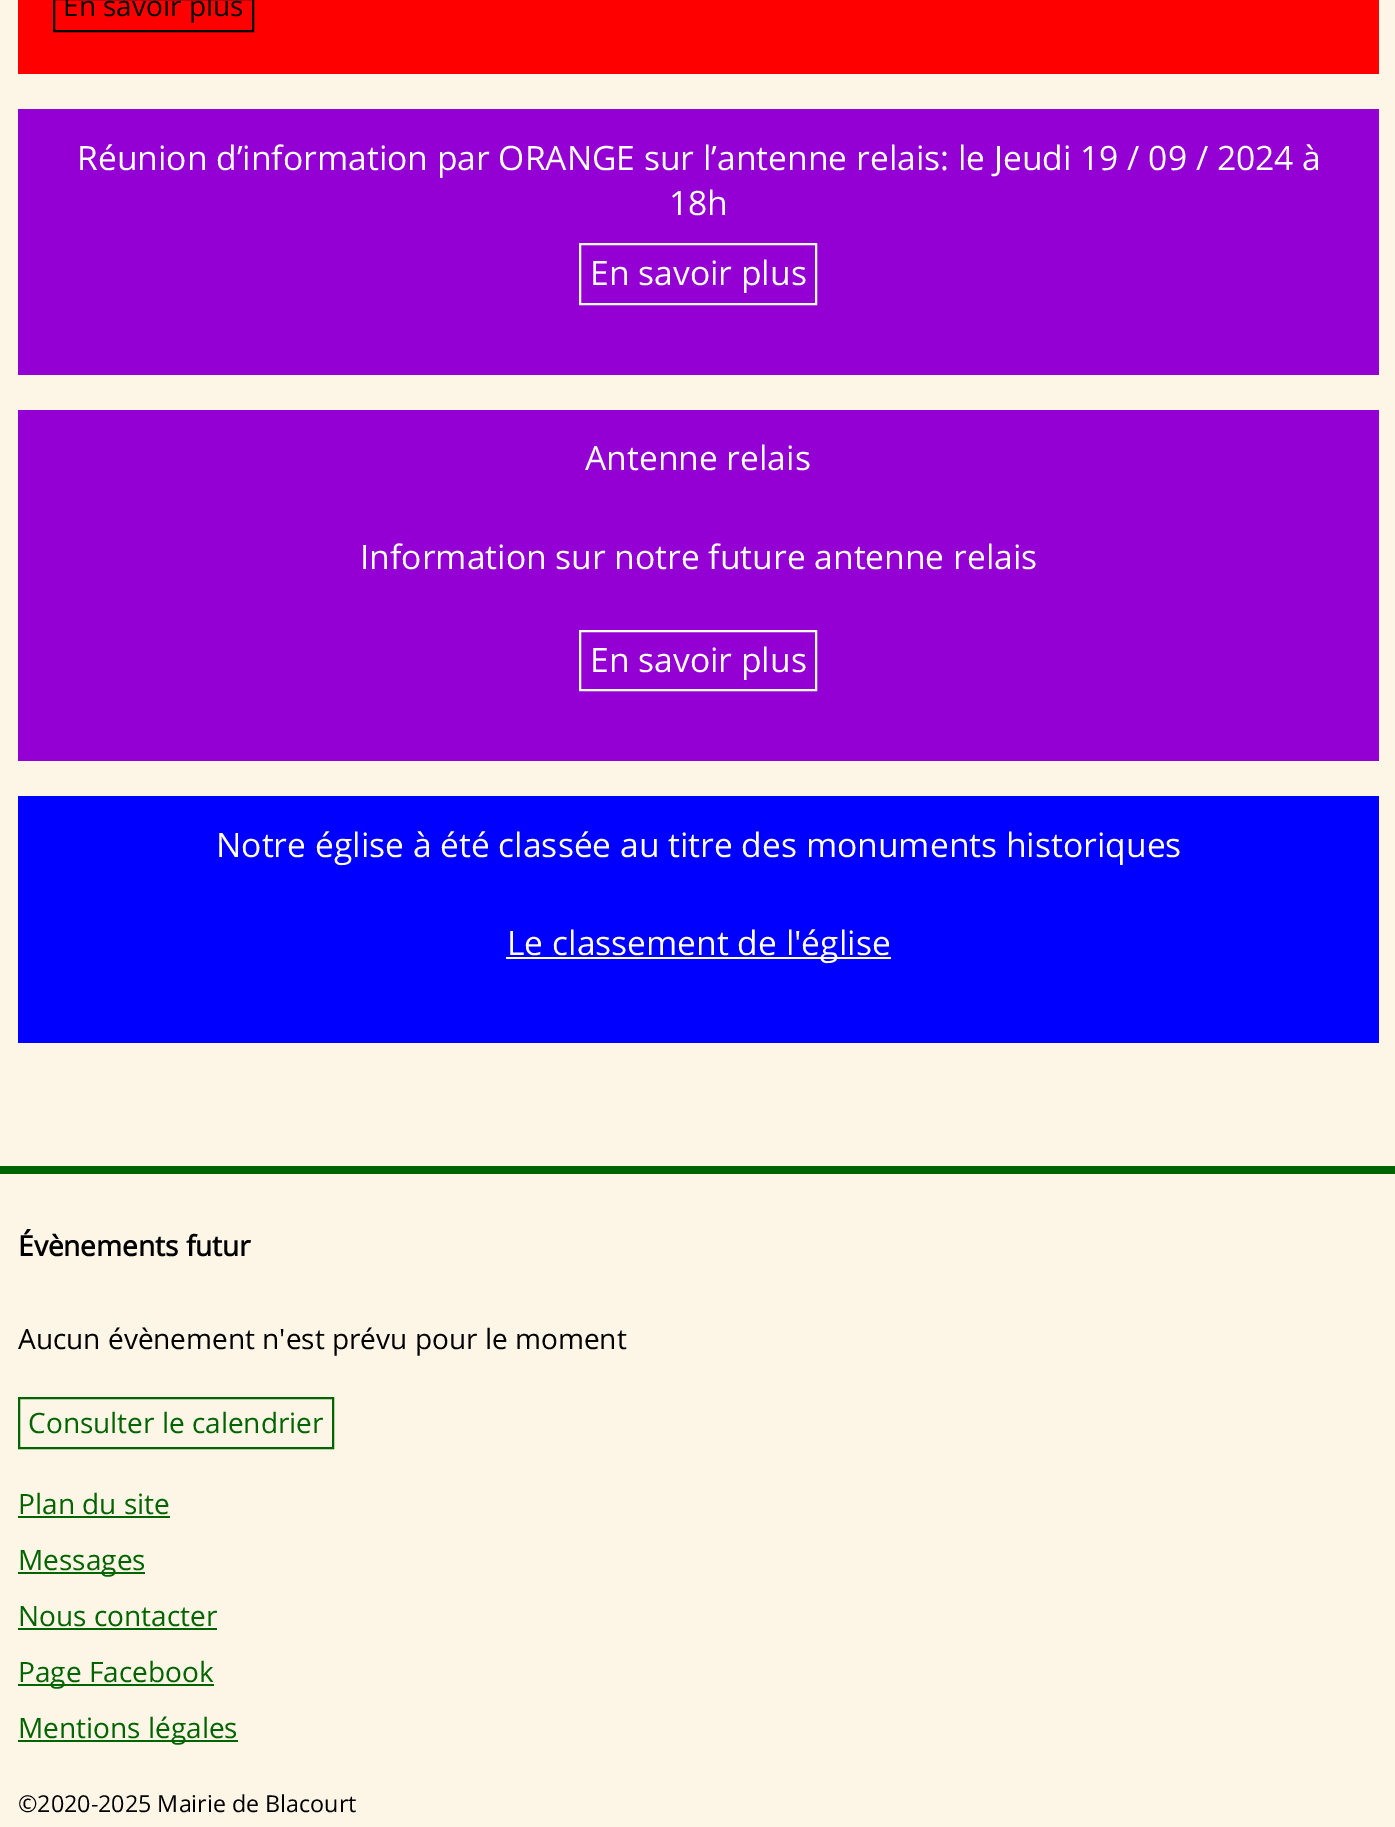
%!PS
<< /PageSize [1395 1827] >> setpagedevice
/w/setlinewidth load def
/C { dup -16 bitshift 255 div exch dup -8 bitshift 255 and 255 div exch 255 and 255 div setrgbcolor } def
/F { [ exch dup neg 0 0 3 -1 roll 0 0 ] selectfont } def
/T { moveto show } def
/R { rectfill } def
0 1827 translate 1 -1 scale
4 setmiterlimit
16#FDF5E6 C
0 0 1395 1827 R
16#FF0000 C
18 0 1361 74 R
16#000000 C
2 w
54 -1 199 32 rectstroke
/OpenSans-Regular 28 F
(En savoir plus) 63 16 T
16#9400D3 C
18 109 1361 266 R
/OpenSans-Regular 33.6 F
16#FFFFFF C
(Réunion d’information par ORANGE sur l’antenne relais: le Jeudi 19 / 09 / 2024 à) 77 170 T
(18h) 669 215 T
580 244 236 60 rectstroke
(En savoir plus) 590 285 T
16#9400D3 C
18 410 1361 351 R
16#FFFFFF C
(Antenne relais) 585 470 T
(Information sur notre future antenne relais) 360 569 T
580 631 236 59 rectstroke
(En savoir plus) 590 672 T
16#0000FF C
18 796 1361 247 R
16#FFFFFF C
(Notre église à été classée au titre des monuments historiques) 216 857 T
506 957 385 2 R
(Le classement de l'église) 507 955 T
16#006400 C
0 1166 1395 8 R
/OpenSans-Bold 28 F
16#000000 C
(Évènements futur) 18 1256 T
/OpenSans-Regular 28 F
(Aucun évènement n'est prévu pour le moment) 18 1349 T
16#006400 C
19 1398 314 50 rectstroke
(Consulter le calendrier) 28 1433 T
(Plan du site) 18 1514 T
18 1516 152 2 R
18 1572 127 2 R
(Messages) 18 1570 T
(Nous contacter) 18 1626 T
18 1628 199 2 R
18 1684 196 2 R
(Page Facebook) 18 1682 T
18 1740 220 2 R
(Mentions légales) 18 1738 T
/OpenSans-Regular 23.3 F
16#000000 C
(©2020-2025 Mairie de Blacourt) 18 1812 T
showpage
